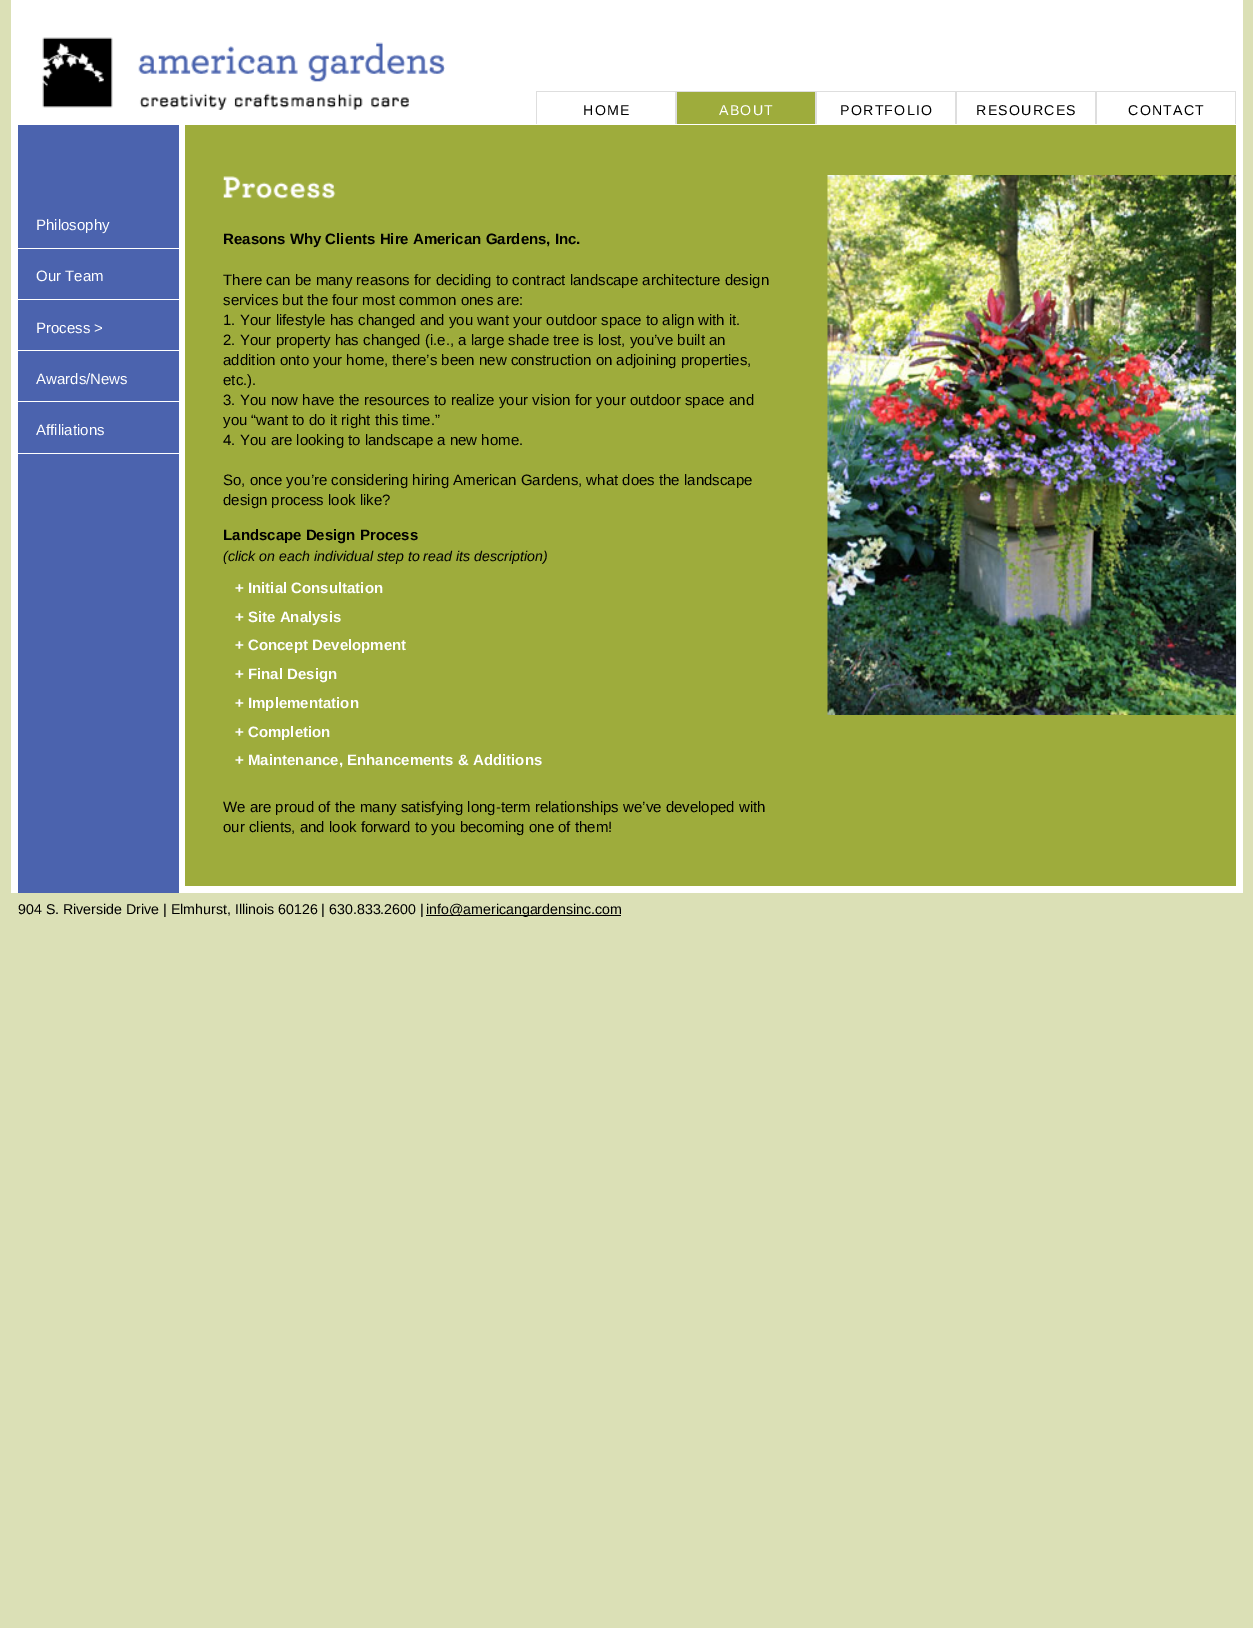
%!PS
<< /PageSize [1253 1628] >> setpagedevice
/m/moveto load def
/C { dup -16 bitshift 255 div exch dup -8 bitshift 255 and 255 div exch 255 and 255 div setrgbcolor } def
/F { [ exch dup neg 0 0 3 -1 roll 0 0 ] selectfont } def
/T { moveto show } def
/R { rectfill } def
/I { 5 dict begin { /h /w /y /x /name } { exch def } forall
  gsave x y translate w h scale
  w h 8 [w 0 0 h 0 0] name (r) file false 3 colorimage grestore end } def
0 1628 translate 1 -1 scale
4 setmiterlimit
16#DBE0B6 C
0 0 1253 1628 R
16#FFFFFF C
11 0 1232 125 R
(1.rgb) 42 37 403 73 I
16#DEDEDE C
536 91 700 1 R
675 91 2 33 R
536 91 1 33 R
/LiberationSans-Regular 14.2 F
16#000000 C
583 115 m 1.25 0 (HOME) ashow
16#9EAC3C C
677 92 138 32 R
16#DEDEDE C
815 91 2 33 R
16#FFFFFF C
719 115 m 1.25 0 (ABOUT) ashow
16#DEDEDE C
955 91 2 33 R
16#000000 C
840 115 m 1.25 0 (PORTFOLIO) ashow
16#DEDEDE C
1095 91 2 33 R
16#000000 C
976 115 m 1.25 0 (RESOURCES) ashow
16#DEDEDE C
1235 91 1 33 R
16#000000 C
1128 115 m 1.25 0 (CONTACT) ashow
16#FFFFFF C
1236 125 7 768 R
11 125 7 768 R
16#4B63AE C
18 125 161 768 R
16#FFFFFF C
18 248 161 1 R
/LiberationSans-Regular 15 F
(Philosophy) 36 230 T
18 299 161 1 R
(Our Team) 36 281 T
18 350 161 1 R
(Process >) 36 333 T
18 401 161 1 R
(Awards/News) 36 384 T
18 453 161 1 R
(Affiliations) 36 435 T
179 125 6 768 R
16#9EAC3C C
185 125 1051 761 R
(2.rgb) 827 175 410 540 I
16#FFFFFF C
185 886 1051 7 R
(3.rgb) 223 176 113 23 I
/LiberationSans-Bold 15 F
16#000000 C
(Reasons Why Clients Hire American Gardens, Inc.) 223 244 T
/LiberationSans-Regular 15 F
(There can be many reasons for deciding to contract landscape architecture design) 223 285 T
(services but the four most common ones are:) 223 305 T
(1. Your lifestyle has changed and you want your outdoor space to align with it.) 223 325 T
(2. Your property has changed \(i.e., a large shade tree is lost, you’ve built an) 223 345 T
(addition onto your home, there’s been new construction on adjoining properties,) 223 365 T
(etc.\).) 223 385 T
(3. You now have the resources to realize your vision for your outdoor space and) 223 405 T
(you “want to do it right this time.”) 223 425 T
(4. You are looking to landscape a new home.) 223 445 T
(So, once you’re considering hiring American Gardens, what does the landscape) 223 485 T
(design process look like?) 223 505 T
/LiberationSans-Bold 15 F
(Landscape Design Process) 223 540 T
/LiberationSans-Italic 14.2 F
(\(click on each individual step to read its description\)) 223 561 T
/LiberationSans-Bold 15 F
16#FFFFFF C
(+ Initial Consultation) 235 593 T
(+ Site Analysis) 235 622 T
(+ Concept Development) 235 650 T
(+ Final Design) 235 679 T
(+ Implementation) 235 708 T
(+ Completion) 235 737 T
(+ Maintenance, Enhancements & Additions) 235 765 T
/LiberationSans-Regular 15 F
16#000000 C
(We are proud of the many satisfying long-term relationships we’ve developed with) 223 812 T
(our clients, and look forward to you becoming one of them!) 223 832 T
/LiberationSans-Regular 14.2 F
(904 S. Riverside Drive | Elmhurst, Illinois 60126 | 630.833.2600 |) 18 914 T
426 915 195 1 R
(info@americangardensinc.com) 426 914 T
showpage
